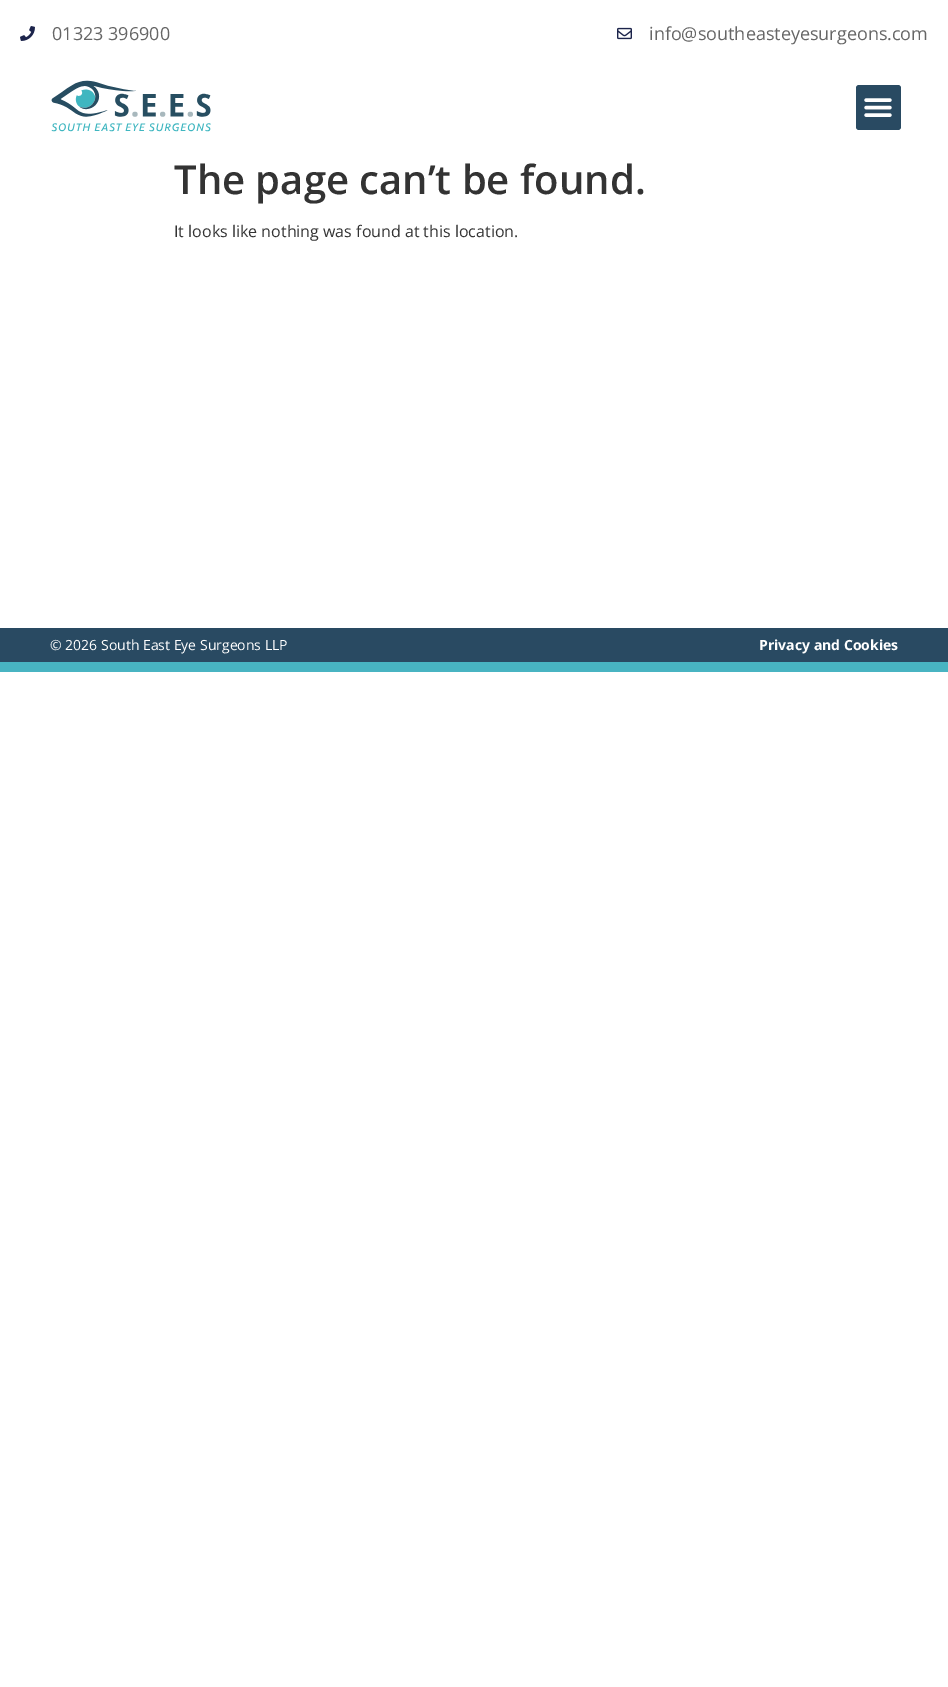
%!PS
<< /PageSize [948 1687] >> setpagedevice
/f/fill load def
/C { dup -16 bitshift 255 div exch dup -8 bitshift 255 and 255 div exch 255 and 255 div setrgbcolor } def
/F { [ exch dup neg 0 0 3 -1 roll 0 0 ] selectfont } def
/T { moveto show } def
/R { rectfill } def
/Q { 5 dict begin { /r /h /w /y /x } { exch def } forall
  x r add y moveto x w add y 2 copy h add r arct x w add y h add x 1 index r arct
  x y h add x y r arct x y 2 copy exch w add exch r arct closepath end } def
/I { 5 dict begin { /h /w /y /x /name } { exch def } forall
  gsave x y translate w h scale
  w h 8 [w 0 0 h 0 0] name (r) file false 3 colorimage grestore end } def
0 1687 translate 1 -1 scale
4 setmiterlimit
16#FFFFFF C
0 0 948 1687 R
(1.rgb) 20 26 15 15 I
/OpenSans-Regular 18 F
16#666666 C
(01323 396900) 52 40 T
(2.rgb) 617 27 15 13 I
(info@southeasteyesurgeons.com) 649 40 T
(3.rgb) 51 80 160 52 I
16#294A62 C
856 85 45 45 3 Q f
(4.rgb) 864 98 28 19 I
/OpenSans-SemiBold 40 F
16#333333 C
(The page can’t be found.) 174 194 T
/OpenSans-Regular 16 F
(It looks like nothing was found at this location.) 174 237 T
16#294A62 C
0 628 948 34 R
16#48B4C2 C
0 662 948 10 R
/OpenSans-Regular 14 F
16#FFFFFF C
(© 2026 South East Eye Surgeons LLP) 50 650 T
/OpenSans-Bold 14 F
(Privacy and Cookies) 759 650 T
showpage
